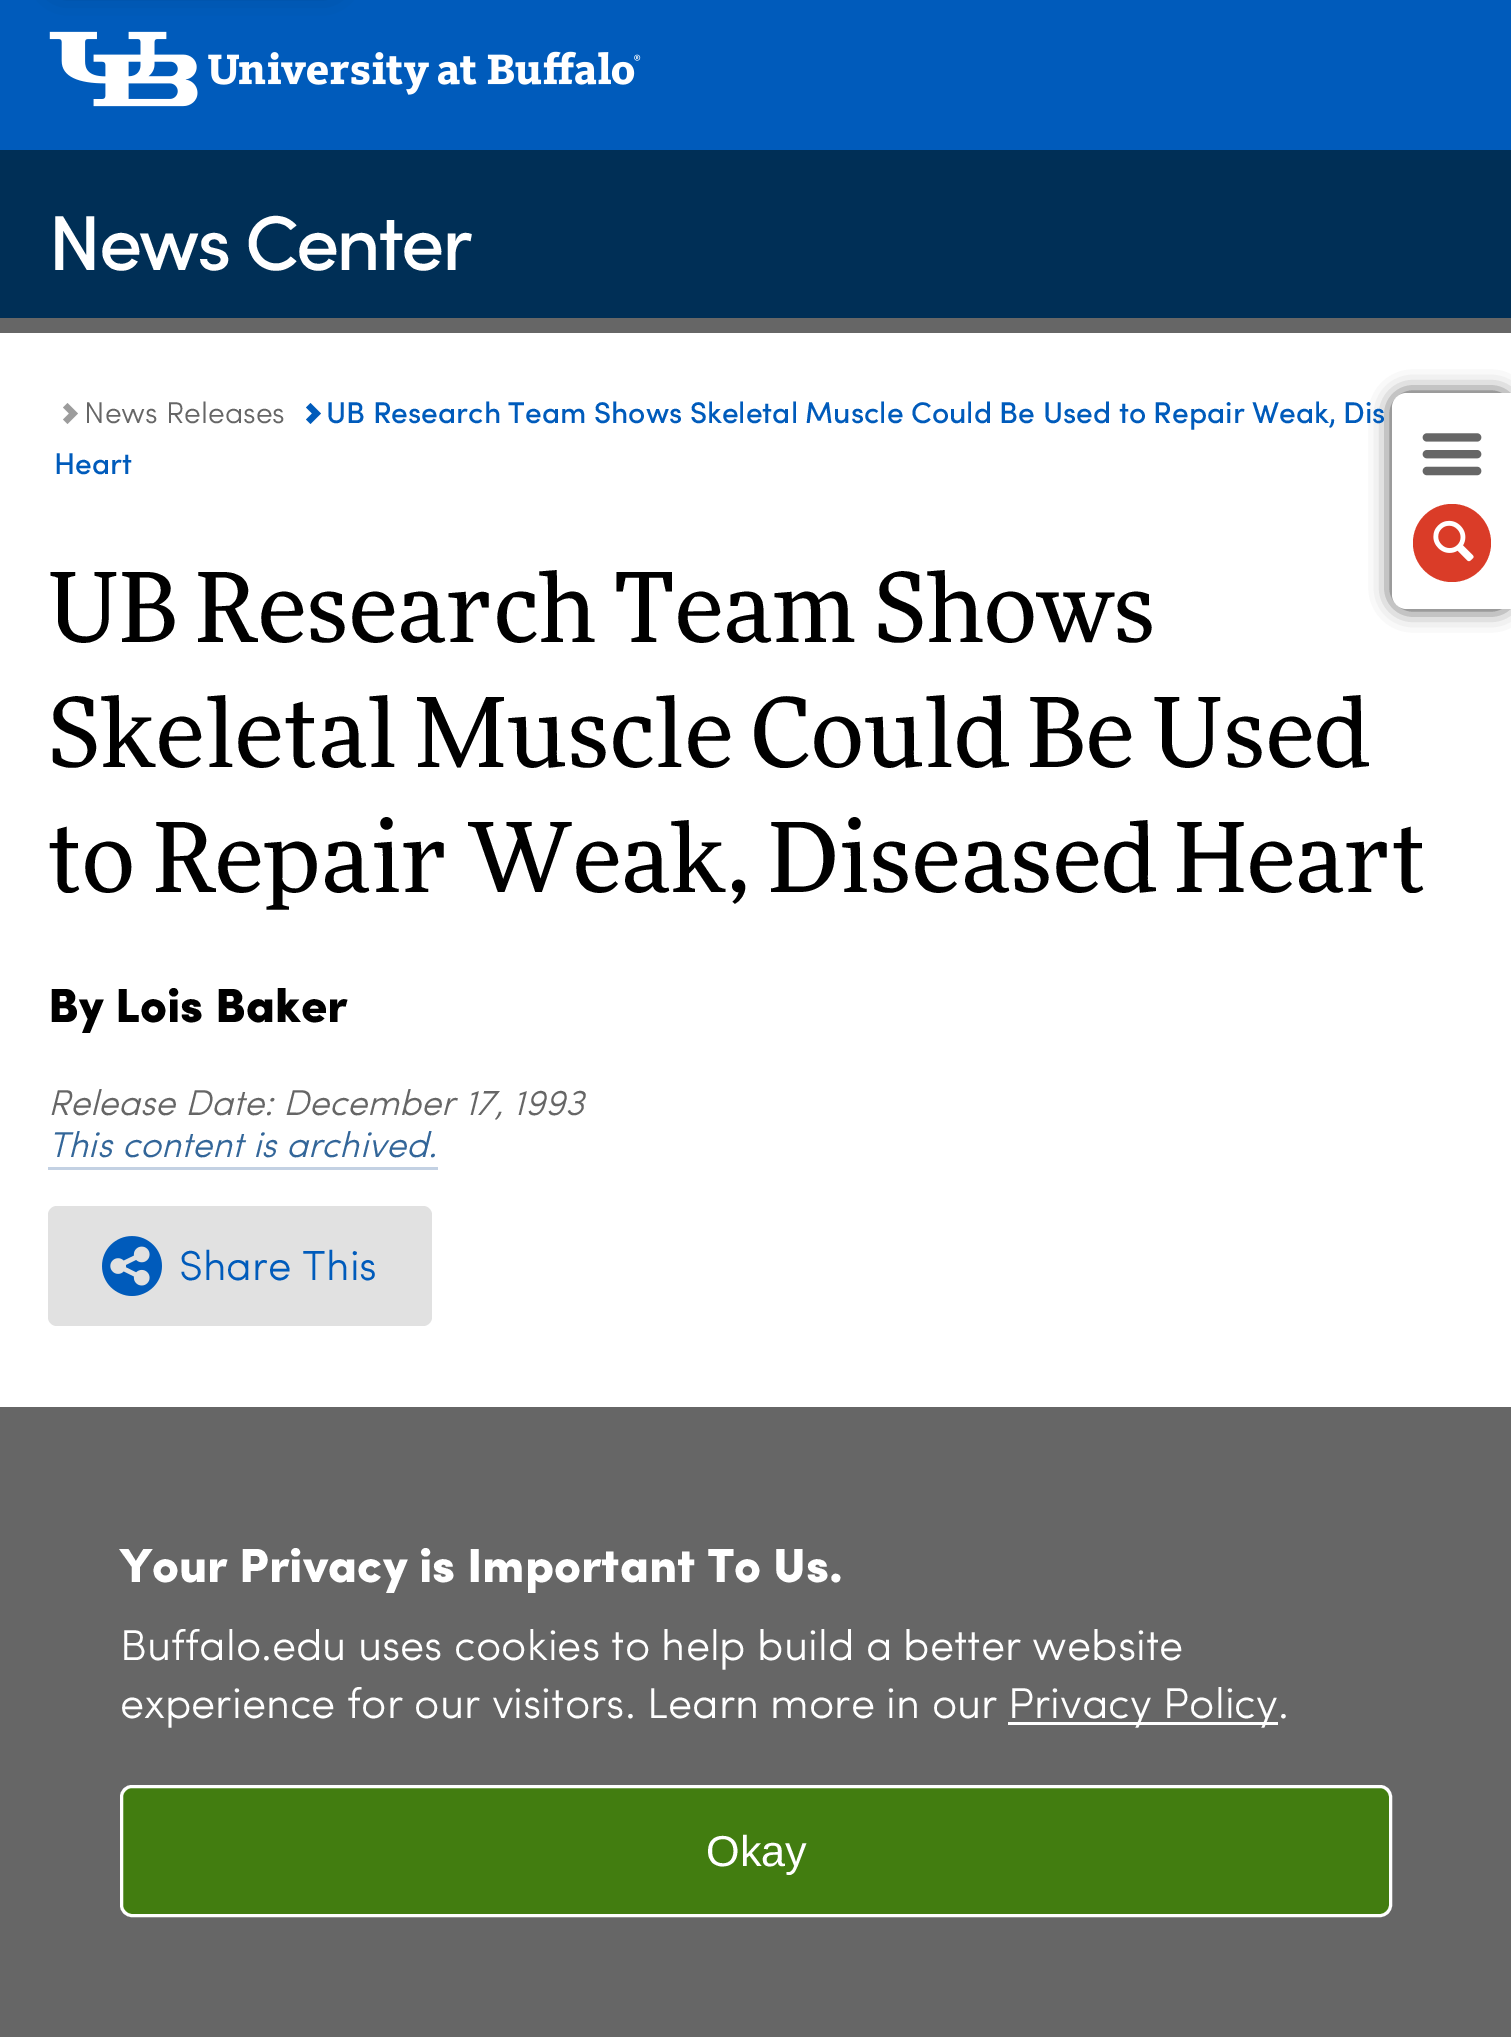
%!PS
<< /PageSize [1511 2037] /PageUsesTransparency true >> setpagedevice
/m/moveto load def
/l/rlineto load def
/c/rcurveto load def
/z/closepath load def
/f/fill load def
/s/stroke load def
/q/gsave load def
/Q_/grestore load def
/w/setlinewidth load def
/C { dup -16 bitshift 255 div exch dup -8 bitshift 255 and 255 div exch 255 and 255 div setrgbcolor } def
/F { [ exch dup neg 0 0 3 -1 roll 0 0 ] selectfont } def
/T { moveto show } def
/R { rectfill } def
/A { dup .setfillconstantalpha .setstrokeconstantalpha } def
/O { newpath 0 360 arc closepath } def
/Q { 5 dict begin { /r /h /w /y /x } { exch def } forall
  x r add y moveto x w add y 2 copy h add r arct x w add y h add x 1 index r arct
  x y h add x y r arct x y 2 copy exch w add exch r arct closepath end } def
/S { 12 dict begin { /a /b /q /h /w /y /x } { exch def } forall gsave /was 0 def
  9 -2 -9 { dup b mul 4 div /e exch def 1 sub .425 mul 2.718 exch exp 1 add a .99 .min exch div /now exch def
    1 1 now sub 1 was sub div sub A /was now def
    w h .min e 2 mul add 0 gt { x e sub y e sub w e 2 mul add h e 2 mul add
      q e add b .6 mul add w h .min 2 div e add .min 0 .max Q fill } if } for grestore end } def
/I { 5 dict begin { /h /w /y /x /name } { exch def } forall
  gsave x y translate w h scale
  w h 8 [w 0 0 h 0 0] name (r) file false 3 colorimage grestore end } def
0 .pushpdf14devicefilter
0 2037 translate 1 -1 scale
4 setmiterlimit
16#FFFFFF C
0 0 1511 2037 R
16#005BBB C
0 0 1511 150 R
16#000000 C
60 -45 270 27 0 15 .5 S
(1.rgb) 49 31 592 76 I
16#002F56 C
0 150 1511 168 R
/Sofia-Medium 78 F
16#FFFFFF C
48 270 m -3 0 (News Center) ashow
16#666666 C
0 318 1511 15 R
16#333333 C
1392 393 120 216 15 10.5 1 S
16#FFFFFF C
1407 393 m 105 0 l 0 216 l -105 0 l -8.5 0 -15 -6.5 -15 -15 c 0 -186 l 0 -8.5 6.5 -15 15 -15 c z f
(2.rgb) 1422 433 60 43 I
16#DA3C28 C
1452 543 39 O f
(3.rgb) 1433 520 41 42 I
16#9C9C9C C
78 413.5 m -10.5 10.5 l -4.5 -4.5 l 6 -6 l -6 -6 l 4.5 -4.5 l z f
/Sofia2-Regular 30 F
16#666666 C
(News Releases) 84 423 T
16#005BBB C
321 413.5 m -10.5 10.5 l -4.5 -4.5 l 6 -6 l -6 -6 l 4.5 -4.5 l z f
/Sofia-Medium 30 F
(UB Research Team Shows Skeletal Muscle Could Be Used to Repair Weak, Dis) 326 423 T
(Heart) 54 474 T
/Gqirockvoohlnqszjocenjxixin-Regular 96 F
16#000000 C
(UB Research Team Shows) 48 642 T
(Skeletal Muscle Could Be Used) 48 767 T
(to Repair Weak, Diseased Heart) 48 892 T
/Sofia-Regular 48 F
(By Lois Baker) 48 1022 T
/Sofia-Italic 36 F
16#666666 C
(Release Date: December 17, 1993) 48 1115 T
16#336699 C
(This content is archived.) 48 1157 T
16#C3D1E3 C
48 1167 390 3 R
16#E1E1E1 C
48 1206 384 120 9 Q f
(4.rgb) 102 1236 60 60 I
/Sofia2-Regular 42 F
16#005BBB C
(Share This) 179 1280 T
16#666666 C
0 1407 1511 630 R
/Sofia-Regular 48 F
16#FFFFFF C
(Your Privacy is Important To Us.) 120 1582 T
/Sofia2-Regular 43.2 F
(Buffalo.edu uses cookies to help build a better website) 120 1660 T
(experience for our visitors. Learn more in our) 120 1718 T
1008 1722 270 3 R
(Privacy Policy.) 1008 1718 T
16#427D10 C
121.5 1786.5 1269 129 10.5 Q q f Q_
16#FFFFFF C
3 w
s
/LiberationSans-Regular 43.2 F
(Okay) 706 1866 T
.poppdf14devicefilter showpage
